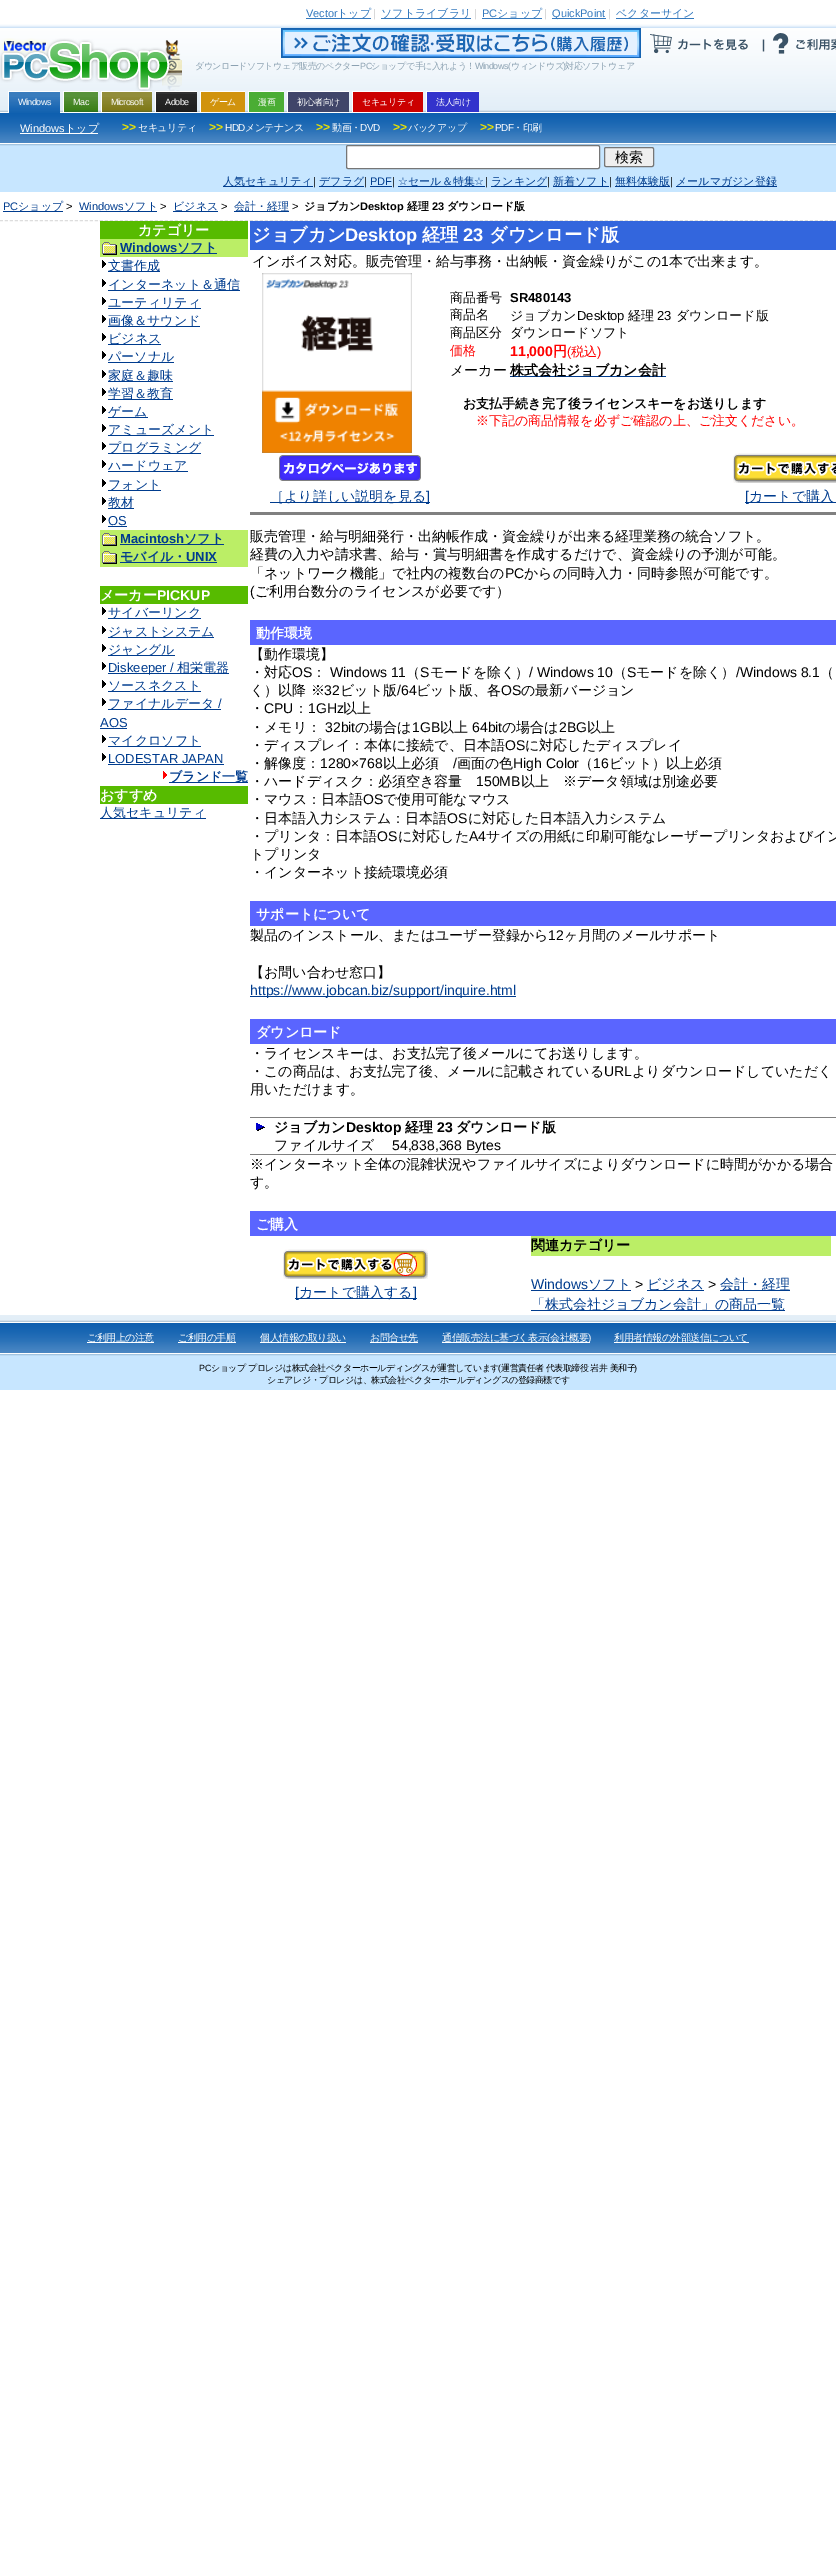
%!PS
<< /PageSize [836 2549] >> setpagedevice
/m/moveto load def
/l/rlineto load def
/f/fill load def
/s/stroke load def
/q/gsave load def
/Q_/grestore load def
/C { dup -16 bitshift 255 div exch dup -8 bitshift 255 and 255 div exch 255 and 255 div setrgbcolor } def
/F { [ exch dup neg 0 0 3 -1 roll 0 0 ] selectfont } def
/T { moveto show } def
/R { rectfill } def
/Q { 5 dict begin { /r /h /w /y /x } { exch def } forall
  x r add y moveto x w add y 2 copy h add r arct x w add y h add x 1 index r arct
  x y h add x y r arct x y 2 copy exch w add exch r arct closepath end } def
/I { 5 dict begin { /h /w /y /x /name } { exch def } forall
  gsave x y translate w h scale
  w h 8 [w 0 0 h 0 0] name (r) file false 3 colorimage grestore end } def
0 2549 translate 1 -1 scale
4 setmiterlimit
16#FFFFFF C
0 0 836 2549 R
16#C7E6FF C
0 146 836 46 R
(1.rgb) 0 28 836 118 I
(2.rgb) 0 24 836 4 I
/LiberationSans-Regular 11 F
16#3479BE C
(Vector) 306 17 T
306 18 65 1 R
/WenQuanYiZenHei-Medium 11 F
(トップ) 337 17 T
/LiberationSans-Regular 11 F
16#CCCCCC C
(|) 373 17 T
16#3479BE C
381 18 90 1 R
/WenQuanYiZenHei-Medium 11 F
(ソフトライブラリ) 381 17 T
/LiberationSans-Regular 11 F
16#CCCCCC C
(|) 474 17 T
16#3479BE C
(PC) 482 17 T
482 18 60 1 R
/WenQuanYiZenHei-Medium 11 F
(ショップ) 497 17 T
/LiberationSans-Regular 11 F
16#CCCCCC C
(|) 544 17 T
16#3479BE C
552 18 54 1 R
(QuickPoint) 552 17 T
16#CCCCCC C
(|) 608 17 T
16#3479BE C
616 18 78 1 R
/WenQuanYiZenHei-Medium 11 F
(ベクターサイン) 616 17 T
(3.rgb) 281 28 360 30 I
(4.rgb) 650 34 115 20 I
(5.rgb) 773 33 63 21 I
(6.rgb) 0 38 182 53 I
/WenQuanYiZenHei-Medium 9 F
16#8CA2B2 C
195 69 m -.5 0 (ダウンロードソフトウェア販売のベクター) ashow
/LiberationSans-Regular 9 F
360 69 m -.5 0 (PC) ashow
/WenQuanYiZenHei-Medium 9 F
371 69 m -.5 0 (ショップで手に入れよう！) ashow
/LiberationSans-Regular 9 F
475 69 m -.5 0 (Windows\() ashow
/WenQuanYiZenHei-Medium 9 F
511 69 m -.5 0 (ウィンドウズ) ashow
/LiberationSans-Regular 9 F
563 69 m -.5 0 (\)) ashow
/WenQuanYiZenHei-Medium 9 F
565 69 m -.5 0 (対応ソフトウェア) ashow
16#397CBD C
9 92 51 5 R
(7.rgb) 9 97 51 15 I
16#FFFFFF C
8 91 52 1 R
16#1262B0 C
8 112 52 1 R
16#FFFFFF C
8 91 1 22 R
/LiberationSans-Regular 9 F
18 105 m -.5 0 (Windows) ashow
16#57923A C
64 92 34 5 R
(8.rgb) 64 97 34 15 I
16#FFFFFF C
63 91 35 1 R
63 91 1 22 R
73 105 m -.5 0 (Mac) ashow
16#928D3A C
102 92 50 5 R
(9.rgb) 102 97 50 15 I
16#FFFFFF C
101 91 51 1 R
101 91 1 22 R
111 105 m -.5 0 (Microsoft) ashow
16#323232 C
156 92 41 2 R
(10.rgb) 156 94 41 18 I
16#FFFFFF C
155 91 42 1 R
155 91 1 22 R
165 105 m -.5 0 (Adobe) ashow
16#D1930D C
201 92 44 20 R
16#FFFFFF C
200 91 45 1 R
200 91 1 22 R
/WenQuanYiZenHei-Medium 9 F
210 105 m -.5 0 (ゲーム) ashow
16#4AAD34 C
249 92 35 20 R
16#FFFFFF C
248 91 36 1 R
248 91 1 22 R
258 105 m -.5 0 (漫画) ashow
16#404569 C
288 92 61 20 R
16#FFFFFF C
287 91 62 1 R
287 91 1 22 R
297 105 m -.5 0 (初心者向け) ashow
16#CC0000 C
353 92 70 20 R
16#FFFFFF C
352 91 71 1 R
352 91 1 22 R
362 105 m -.5 0 (セキュリティ) ashow
16#3333CC C
427 92 52 20 R
16#FFFFFF C
426 91 53 1 R
426 91 1 22 R
436 105 m -.5 0 (法人向け) ashow
/LiberationSans-Regular 11 F
(Windows) 20 132 T
20 133 78 1 R
/WenQuanYiZenHei-Medium 11 F
(トップ) 65 132 T
/LiberationSans-Bold 12 F
16#EBE300 C
122 131 m -.5 0 (>>) ashow
/WenQuanYiZenHei-Medium 10 F
16#FFFFFF C
138 131 m -.5 0 (セキュリティ) ashow
/LiberationSans-Bold 12 F
16#EBE300 C
209 131 m -.5 0 (>>) ashow
/LiberationSans-Regular 10 F
16#FFFFFF C
225 131 m -.5 0 (HDD) ashow
/WenQuanYiZenHei-Medium 10 F
245 131 m -.5 0 (メンテナンス) ashow
/LiberationSans-Bold 12 F
16#EBE300 C
316 131 m -.5 0 (>>) ashow
/WenQuanYiZenHei-Medium 10 F
16#FFFFFF C
332 131 m -.5 0 (動画・) ashow
/LiberationSans-Regular 10 F
360 131 m -.5 0 (DVD) ashow
/LiberationSans-Bold 12 F
16#EBE300 C
393 131 m -.5 0 (>>) ashow
/WenQuanYiZenHei-Medium 10 F
16#FFFFFF C
408 131 m -.5 0 (バックアップ) ashow
/LiberationSans-Bold 12 F
16#EBE300 C
480 131 m -.5 0 (>>) ashow
/LiberationSans-Regular 10 F
16#FFFFFF C
495 131 m -.5 0 (PDF) ashow
/WenQuanYiZenHei-Medium 10 F
513 131 m -.5 0 (・印刷) ashow
346.5 145.5 253 23 1.5 Q q f Q_
16#767676 C
s
16#EFEFEF C
604.5 147.5 49 19 1.5 Q q f Q_
16#767676 C
s
/WenQuanYiZenHei-Medium 14 F
16#000000 C
(検索) 615 162 T
16#003C8E C
223 186 90 1 R
/WenQuanYiZenHei-Medium 11 F
(人気セキュリティ) 223 185 T
/LiberationSans-Regular 11 F
16#000000 C
(|) 313 185 T
16#003C8E C
319 186 45 1 R
/WenQuanYiZenHei-Medium 11 F
(デフラグ) 319 185 T
/LiberationSans-Regular 11 F
16#000000 C
(|) 364 185 T
16#003C8E C
(PDF) 370 185 T
370 186 22 1 R
16#000000 C
(|) 392 185 T
/DejaVuSans-Regular 11 F
16#003C8E C
(☆) 398 185 T
398 186 87 1 R
/WenQuanYiZenHei-Medium 11 F
(セール＆特集) 408 185 T
/DejaVuSans-Regular 11 F
(☆) 474 185 T
/LiberationSans-Regular 11 F
16#000000 C
(|) 485 185 T
16#003C8E C
491 186 56 1 R
/WenQuanYiZenHei-Medium 11 F
(ランキング) 491 185 T
/LiberationSans-Regular 11 F
16#000000 C
(|) 547 185 T
16#003C8E C
553 186 56 1 R
/WenQuanYiZenHei-Medium 11 F
(新着ソフト) 553 185 T
/LiberationSans-Regular 11 F
16#000000 C
(|) 609 185 T
16#003C8E C
615 186 55 1 R
/WenQuanYiZenHei-Medium 11 F
(無料体験版) 615 185 T
/LiberationSans-Regular 11 F
16#000000 C
(|) 670 185 T
16#003C8E C
676 186 101 1 R
/WenQuanYiZenHei-Medium 11 F
(メールマガジン登録) 676 185 T
16#DDDDDD C
[3 2] 0 setdash
0 220.5 m 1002 0 l s
/LiberationSans-Regular 11 F
16#003C8E C
(PC) 3 210 T
3 211 60 1 R
/WenQuanYiZenHei-Medium 11 F
(ショップ) 18 210 T
/LiberationSans-Regular 11 F
16#000000 C
(>) 66 210 T
16#003C8E C
(Windows) 79 210 T
79 211 78 1 R
/WenQuanYiZenHei-Medium 11 F
(ソフト) 124 210 T
/LiberationSans-Regular 11 F
16#000000 C
(>) 160 210 T
16#003C8E C
173 211 45 1 R
/WenQuanYiZenHei-Medium 11 F
(ビジネス) 173 210 T
/LiberationSans-Regular 11 F
16#000000 C
(>) 221 210 T
16#003C8E C
234 211 55 1 R
/WenQuanYiZenHei-Medium 11 F
(会計・経理) 234 210 T
/LiberationSans-Regular 11 F
16#000000 C
(>) 292 210 T
/WenQuanYiZenHei-Bold 11 F
(ジョブカン) 304 210 T
/LiberationSans-Bold 11 F
(Desktop) 360 210 T
/WenQuanYiZenHei-Bold 11 F
(経理) 407 210 T
/LiberationSans-Bold 11 F
(23) 432 210 T
/WenQuanYiZenHei-Bold 11 F
(ダウンロード版) 447 210 T
16#57BB00 C
100 221 148 18 R
/WenQuanYiZenHei-Bold 14 F
16#FFFFFF C
(カテゴリー) 138 235 T
16#BBEE66 C
100 239 148 18 R
(11.rgb) 102 242 15 13 I
/LiberationSans-Bold 13 F
16#003C8E C
(Windows) 120 252 T
120 253 97 1 R
/WenQuanYiZenHei-Bold 13 F
(ソフト) 177 252 T
(12.rgb) 102 260 4 8 I
108 271 52 1 R
/WenQuanYiZenHei-Medium 13 F
(文書作成) 108 270 T
(12.rgb) 102 279 4 8 I
108 290 132 1 R
(インターネット＆通信) 108 289 T
(12.rgb) 102 297 4 8 I
108 308 93 1 R
(ユーティリティ) 108 307 T
(12.rgb) 102 315 4 8 I
108 326 92 1 R
(画像＆サウンド) 108 325 T
(12.rgb) 102 333 4 8 I
108 344 53 1 R
(ビジネス) 108 343 T
(12.rgb) 102 351 4 8 I
108 362 66 1 R
(パーソナル) 108 361 T
(12.rgb) 102 370 4 8 I
108 381 65 1 R
(家庭＆趣味) 108 380 T
(12.rgb) 102 388 4 8 I
108 399 65 1 R
(学習＆教育) 108 398 T
(12.rgb) 102 406 4 8 I
108 417 40 1 R
(ゲーム) 108 416 T
(12.rgb) 102 424 4 8 I
108 435 106 1 R
(アミューズメント) 108 434 T
(12.rgb) 102 442 4 8 I
108 453 93 1 R
(プログラミング) 108 452 T
(12.rgb) 102 460 4 8 I
108 471 80 1 R
(ハードウェア) 108 470 T
(12.rgb) 102 479 4 8 I
108 490 53 1 R
(フォント) 108 489 T
(12.rgb) 102 497 4 8 I
108 508 26 1 R
(教材) 108 507 T
(12.rgb) 102 515 4 8 I
/LiberationSans-Regular 13 F
(OS) 108 525 T
108 526 19 1 R
16#BBEE66 C
100 530 148 37 R
(11.rgb) 102 533 15 13 I
/LiberationSans-Bold 13 F
16#003C8E C
(Macintosh) 120 543 T
120 544 104 1 R
/WenQuanYiZenHei-Bold 13 F
(ソフト) 184 543 T
(11.rgb) 102 551 15 13 I
120 562 97 1 R
(モバイル・) 120 561 T
/LiberationSans-Bold 13 F
(UNIX) 186 561 T
16#57BB00 C
100 586 148 218 R
/WenQuanYiZenHei-Bold 14 F
16#FFFFFF C
(メーカー) 100 600 T
/LiberationSans-Bold 14 F
(PICKUP) 157 600 T
100 604 148 182 R
(12.rgb) 102 607 4 8 I
16#003C8E C
108 618 93 1 R
/WenQuanYiZenHei-Medium 13 F
(サイバーリンク) 108 617 T
(12.rgb) 102 626 4 8 I
108 637 106 1 R
(ジャストシステム) 108 636 T
(12.rgb) 102 644 4 8 I
108 655 67 1 R
(ジャングル) 108 654 T
(12.rgb) 102 662 4 8 I
108 673 121 1 R
/LiberationSans-Regular 13 F
(Diskeeper /) 108 672 T
/WenQuanYiZenHei-Medium 13 F
(相栄電器) 177 672 T
(12.rgb) 102 680 4 8 I
108 691 93 1 R
(ソースネクスト) 108 690 T
(12.rgb) 102 698 4 8 I
108 709 113 1 R
(ファイナルデータ) 108 708 T
/LiberationSans-Regular 13 F
(/) 218 708 T
(AOS) 100 727 T
100 728 27 1 R
(12.rgb) 102 735 4 8 I
108 746 93 1 R
/WenQuanYiZenHei-Medium 13 F
(マイクロソフト) 108 745 T
(12.rgb) 102 753 4 8 I
/LiberationSans-Regular 13 F
(LODESTAR JAPAN) 108 763 T
108 764 116 1 R
(13.rgb) 163 771 4 8 I
169 782 79 1 R
/WenQuanYiZenHei-Bold 13 F
(ブランド一覧) 169 781 T
/WenQuanYiZenHei-Bold 14 F
16#FFFFFF C
(おすすめ) 100 800 T
16#003C8E C
100 818 106 1 R
/WenQuanYiZenHei-Medium 13 F
(人気セキュリティ) 100 817 T
16#3366DD C
250 221 586 29 R
/WenQuanYiZenHei-Bold 18.25 F
16#FFFFFF C
(ジョブカン) 252 241 T
/LiberationSans-Bold 18.25 F
(Desktop) 345 241 T
/WenQuanYiZenHei-Bold 18.25 F
(経理) 422 241 T
/LiberationSans-Bold 18.25 F
(23) 463 241 T
/WenQuanYiZenHei-Bold 18.25 F
(ダウンロード版) 489 241 T
/WenQuanYiZenHei-Medium 14 F
16#000000 C
(インボイス対応。販売管理・給与事務・出納帳・資金繰りがこの) 252 266 T
/LiberationSans-Regular 14 F
(1) 661 266 T
/WenQuanYiZenHei-Medium 14 F
(本で出来ます。) 669 266 T
(14.rgb) 262 273 150 180 I
/WenQuanYiZenHei-Medium 13 F
(商品番号) 450 302 T
/LiberationSans-Bold 13 F
(SR480143) 510 302 T
/WenQuanYiZenHei-Medium 13 F
(商品名) 450 319 T
(ジョブカン) 510 320 T
/LiberationSans-Regular 13 F
(Desktop) 577 320 T
/WenQuanYiZenHei-Medium 13 F
(経理) 628 320 T
/LiberationSans-Regular 13 F
(23) 657 320 T
/WenQuanYiZenHei-Medium 13 F
(ダウンロード版) 676 320 T
(商品区分) 450 337 T
(ダウンロードソフト) 510 337 T
16#FF0000 C
(価格) 450 355 T
/LiberationSans-Bold 14 F
(11,000) 510 356 T
/WenQuanYiZenHei-Bold 14 F
(円) 553 356 T
/LiberationSans-Regular 13 F
(\() 567 356 T
/WenQuanYiZenHei-Medium 13 F
(税込) 571 356 T
/LiberationSans-Regular 13 F
(\)) 597 356 T
/WenQuanYiZenHei-Medium 14 F
16#000000 C
(メーカー) 450 375 T
16#003C8E C
510 376 156 1 R
/WenQuanYiZenHei-Bold 14 F
16#000000 C
(株式会社ジョブカン会計) 510 375 T
/WenQuanYiZenHei-Bold 13 F
(お支払手続き完了後ライセンスキーをお送りします) 463 408 T
/WenQuanYiZenHei-Medium 13 F
16#FF0000 C
(※下記の商品情報を必ずご確認の上、ご注文ください。) 476 425 T
(15.rgb) 279 455 142 26 I
16#003C8E C
270 502 160 1 R
/WenQuanYiZenHei-Medium 14 F
(［より詳しい説明を見る) 270 501 T
/LiberationSans-Regular 14 F
(]) 426 501 T
(16.rgb) 733 453 103 30 I
745 502 91 1 R
([) 745 501 T
/WenQuanYiZenHei-Medium 14 F
(カートで購入) 749 501 T
16#808080 C
250 512 586 3 R
16#000000 C
(販売管理・給与明細発行・出納帳作成・資金繰りが出来る経理業務の統合ソフト。) 250 541 T
(経費の入力や請求書、給与・賞与明細書を作成するだけで、資金繰りの予測が可能。) 250 559 T
(「ネットワーク機能」で社内の複数台の) 250 578 T
/LiberationSans-Regular 14 F
(PC) 505 578 T
/WenQuanYiZenHei-Medium 14 F
(からの同時入力・同時参照が可能です。) 524 578 T
/LiberationSans-Regular 14 F
(\() 250 596 T
/WenQuanYiZenHei-Medium 14 F
(ご利用台数分のライセンスが必要です）) 255 596 T
16#5A65FF C
250 620 586 25 R
/WenQuanYiZenHei-Bold 14 F
16#FFFFFF C
(動作環境) 256 638 T
/WenQuanYiZenHei-Medium 14 F
16#000000 C
(【動作環境】) 250 659 T
(・対応) 250 677 T
/LiberationSans-Regular 14 F
(OS) 292 677 T
/WenQuanYiZenHei-Medium 14 F
(：) 312 677 T
/LiberationSans-Regular 14 F
(Windows 11) 330 677 T
/WenQuanYiZenHei-Medium 14 F
(（) 406 677 T
/LiberationSans-Regular 14 F
(S) 420 677 T
/WenQuanYiZenHei-Medium 14 F
(モードを除く）) 430 677 T
/LiberationSans-Regular 14 F
(/ Windows 10) 529 677 T
/WenQuanYiZenHei-Medium 14 F
(（) 613 677 T
/LiberationSans-Regular 14 F
(S) 627 677 T
/WenQuanYiZenHei-Medium 14 F
(モードを除く）) 636 677 T
/LiberationSans-Regular 14 F
(/Windows 8.1) 736 677 T
/WenQuanYiZenHei-Medium 14 F
(（) 820 677 T
(く）以降 ※) 250 695 T
/LiberationSans-Regular 14 F
(32) 324 695 T
/WenQuanYiZenHei-Medium 14 F
(ビット版) 340 695 T
/LiberationSans-Regular 14 F
(/64) 397 695 T
/WenQuanYiZenHei-Medium 14 F
(ビット版、各) 416 695 T
/LiberationSans-Regular 14 F
(OS) 501 695 T
/WenQuanYiZenHei-Medium 14 F
(の最新バージョン) 521 695 T
(・) 250 713 T
/LiberationSans-Regular 14 F
(CPU) 264 713 T
/WenQuanYiZenHei-Medium 14 F
(：) 294 713 T
/LiberationSans-Regular 14 F
(1GHz) 308 713 T
/WenQuanYiZenHei-Medium 14 F
(以上) 343 713 T
(・メモリ：) 250 732 T
/LiberationSans-Regular 14 F
(32bit) 325 732 T
/WenQuanYiZenHei-Medium 14 F
(の場合は) 355 732 T
/LiberationSans-Regular 14 F
(1GB) 412 732 T
/WenQuanYiZenHei-Medium 14 F
(以上) 440 732 T
/LiberationSans-Regular 14 F
(64bit) 472 732 T
/WenQuanYiZenHei-Medium 14 F
(の場合は) 502 732 T
/LiberationSans-Regular 14 F
(2BG) 559 732 T
/WenQuanYiZenHei-Medium 14 F
(以上) 587 732 T
(・ディスプレイ：本体に接続で、日本語) 250 750 T
/LiberationSans-Regular 14 F
(OS) 505 750 T
/WenQuanYiZenHei-Medium 14 F
(に対応したディスプレイ) 525 750 T
(・解像度：) 250 768 T
/LiberationSans-Regular 14 F
(1280×768) 320 768 T
/WenQuanYiZenHei-Medium 14 F
(以上必須) 383 768 T
/LiberationSans-Regular 14 F
(/) 453 768 T
/WenQuanYiZenHei-Medium 14 F
(画面の色) 457 768 T
/LiberationSans-Regular 14 F
(High Color) 513 768 T
/WenQuanYiZenHei-Medium 14 F
(（) 579 768 T
/LiberationSans-Regular 14 F
(16) 593 768 T
/WenQuanYiZenHei-Medium 14 F
(ビット）以上必須) 609 768 T
(・ハードディスク：必須空き容量) 250 786 T
/LiberationSans-Regular 14 F
(150MB) 476 786 T
/WenQuanYiZenHei-Medium 14 F
(以上　※データ領域は別途必要) 521 786 T
(・マウス：日本語) 250 804 T
/LiberationSans-Regular 14 F
(OS) 363 804 T
/WenQuanYiZenHei-Medium 14 F
(で使用可能なマウス) 383 804 T
(・日本語入力システム：日本語) 250 823 T
/LiberationSans-Regular 14 F
(OS) 447 823 T
/WenQuanYiZenHei-Medium 14 F
(に対応した日本語入力システム) 468 823 T
(・プリンタ：日本語) 250 841 T
/LiberationSans-Regular 14 F
(OS) 377 841 T
/WenQuanYiZenHei-Medium 14 F
(に対応した) 398 841 T
/LiberationSans-Regular 14 F
(A4) 469 841 T
/WenQuanYiZenHei-Medium 14 F
(サイズの用紙に印刷可能なレーザープリンタおよびイン) 486 841 T
(トプリンタ) 250 859 T
(・インターネット接続環境必須) 250 877 T
16#5A65FF C
250 901 586 25 R
/WenQuanYiZenHei-Bold 14 F
16#FFFFFF C
(サポートについて) 256 919 T
/WenQuanYiZenHei-Medium 14 F
16#000000 C
(製品のインストール、またはユーザー登録から) 250 940 T
/LiberationSans-Regular 14 F
(12) 548 940 T
/WenQuanYiZenHei-Medium 14 F
(ヶ月間のメールサポート) 564 940 T
(【お問い合わせ窓口】) 250 977 T
16#003C8E C
250 996 266 1 R
/LiberationSans-Regular 14 F
(https://www.jobcan.biz/support/inquire.html) 250 995 T
16#808080 C
250 1117 586 1 R
16#5A65FF C
250 1019 586 25 R
/WenQuanYiZenHei-Bold 14 F
16#FFFFFF C
(ダウンロード) 256 1037 T
/WenQuanYiZenHei-Medium 14 F
16#000000 C
(・ライセンスキーは、お支払完了後メールにてお送りします。) 250 1058 T
(・この商品は、お支払完了後、メールに記載されている) 250 1076 T
/LiberationSans-Regular 14 F
(URL) 604 1076 T
/WenQuanYiZenHei-Medium 14 F
(よりダウンロードしていただく) 632 1076 T
(用いただけます。) 250 1094 T
16#808080 C
250 1154 586 1 R
(17.rgb) 256 1123 9 8 I
/WenQuanYiZenHei-Bold 14 F
16#000000 C
(ジョブカン) 274 1132 T
/LiberationSans-Bold 14 F
(Desktop) 346 1132 T
/WenQuanYiZenHei-Bold 14 F
(経理) 405 1132 T
/LiberationSans-Bold 14 F
(23) 437 1132 T
/WenQuanYiZenHei-Bold 14 F
(ダウンロード版) 456 1132 T
/WenQuanYiZenHei-Medium 14 F
(ファイルサイズ) 274 1150 T
/LiberationSans-Regular 14 F
(54,838,368 Bytes) 392 1150 T
/WenQuanYiZenHei-Medium 14 F
(※インターネット全体の混雑状況やファイルサイズによりダウンロードに時間がかかる場合) 250 1169 T
(す。) 250 1187 T
16#5A65FF C
250 1211 586 25 R
/WenQuanYiZenHei-Bold 14 F
16#FFFFFF C
(ご購入) 256 1229 T
(18.rgb) 283 1249 145 30 I
16#003C8E C
295 1298 122 1 R
/LiberationSans-Regular 14 F
([) 295 1297 T
/WenQuanYiZenHei-Medium 14 F
(カートで購入する) 299 1297 T
/LiberationSans-Regular 14 F
(]) 413 1297 T
16#BBEE66 C
531 1236 300 20 R
/WenQuanYiZenHei-Bold 14 F
16#000000 C
(関連カテゴリー) 531 1250 T
/LiberationSans-Regular 14 F
16#003C8E C
(Windows) 531 1289 T
531 1290 100 1 R
/WenQuanYiZenHei-Medium 14 F
(ソフト) 588 1289 T
/LiberationSans-Regular 14 F
16#000000 C
(>) 635 1289 T
16#003C8E C
647 1290 57 1 R
/WenQuanYiZenHei-Medium 14 F
(ビジネス) 647 1289 T
/LiberationSans-Regular 14 F
16#000000 C
(>) 708 1289 T
16#003C8E C
720 1290 70 1 R
/WenQuanYiZenHei-Medium 14 F
(会計・経理) 720 1289 T
531 1310 254 1 R
(「株式会社ジョブカン会計」の商品一覧) 531 1309 T
16#C7E6FF C
0 1356 836 34 R
(19.rgb) 0 1315 836 41 I
16#FFFFFF C
87 1342 67 1 R
/WenQuanYiZenHei-Medium 10 F
87 1341 m -.5 0 (ご利用上の注意) ashow
178 1342 58 1 R
178 1341 m -.5 0 (ご利用の手順) ashow
260 1342 86 1 R
260 1341 m -.5 0 (個人情報の取り扱い) ashow
370 1342 48 1 R
370 1341 m -.5 0 (お問合せ先) ashow
442 1342 148 1 R
442 1341 m -.5 0 (通信販売法に基づく表示) ashow
/LiberationSans-Regular 10 F
547 1341 m -.5 0 (\() ashow
/WenQuanYiZenHei-Medium 10 F
550 1341 m -.5 0 (会社概要) ashow
/LiberationSans-Regular 10 F
588 1341 m -.5 0 (\)) ashow
614 1342 135 1 R
/WenQuanYiZenHei-Medium 10 F
614 1341 m -.5 0 (利用者情報の外部送信について) ashow
/LiberationSans-Regular 9 F
16#000000 C
199 1371 m -.5 0 (PC) ashow
/WenQuanYiZenHei-Medium 9 F
211 1371 m -.5 0 (ショップ プロレジは株式会社ベクターホールディングスが運営しています) ashow
/LiberationSans-Regular 9 F
498 1371 m -.5 0 (\() ashow
/WenQuanYiZenHei-Medium 9 F
501 1371 m -.5 0 (運営責任者 代表取締役 岩井 美和子) ashow
/LiberationSans-Regular 9 F
634 1371 m -.5 0 (\)) ashow
/WenQuanYiZenHei-Medium 9 F
267 1383 m -.5 0 (シェアレジ・プロレジは、株式会社ベクターホールディングスの登録商標です) ashow
showpage
